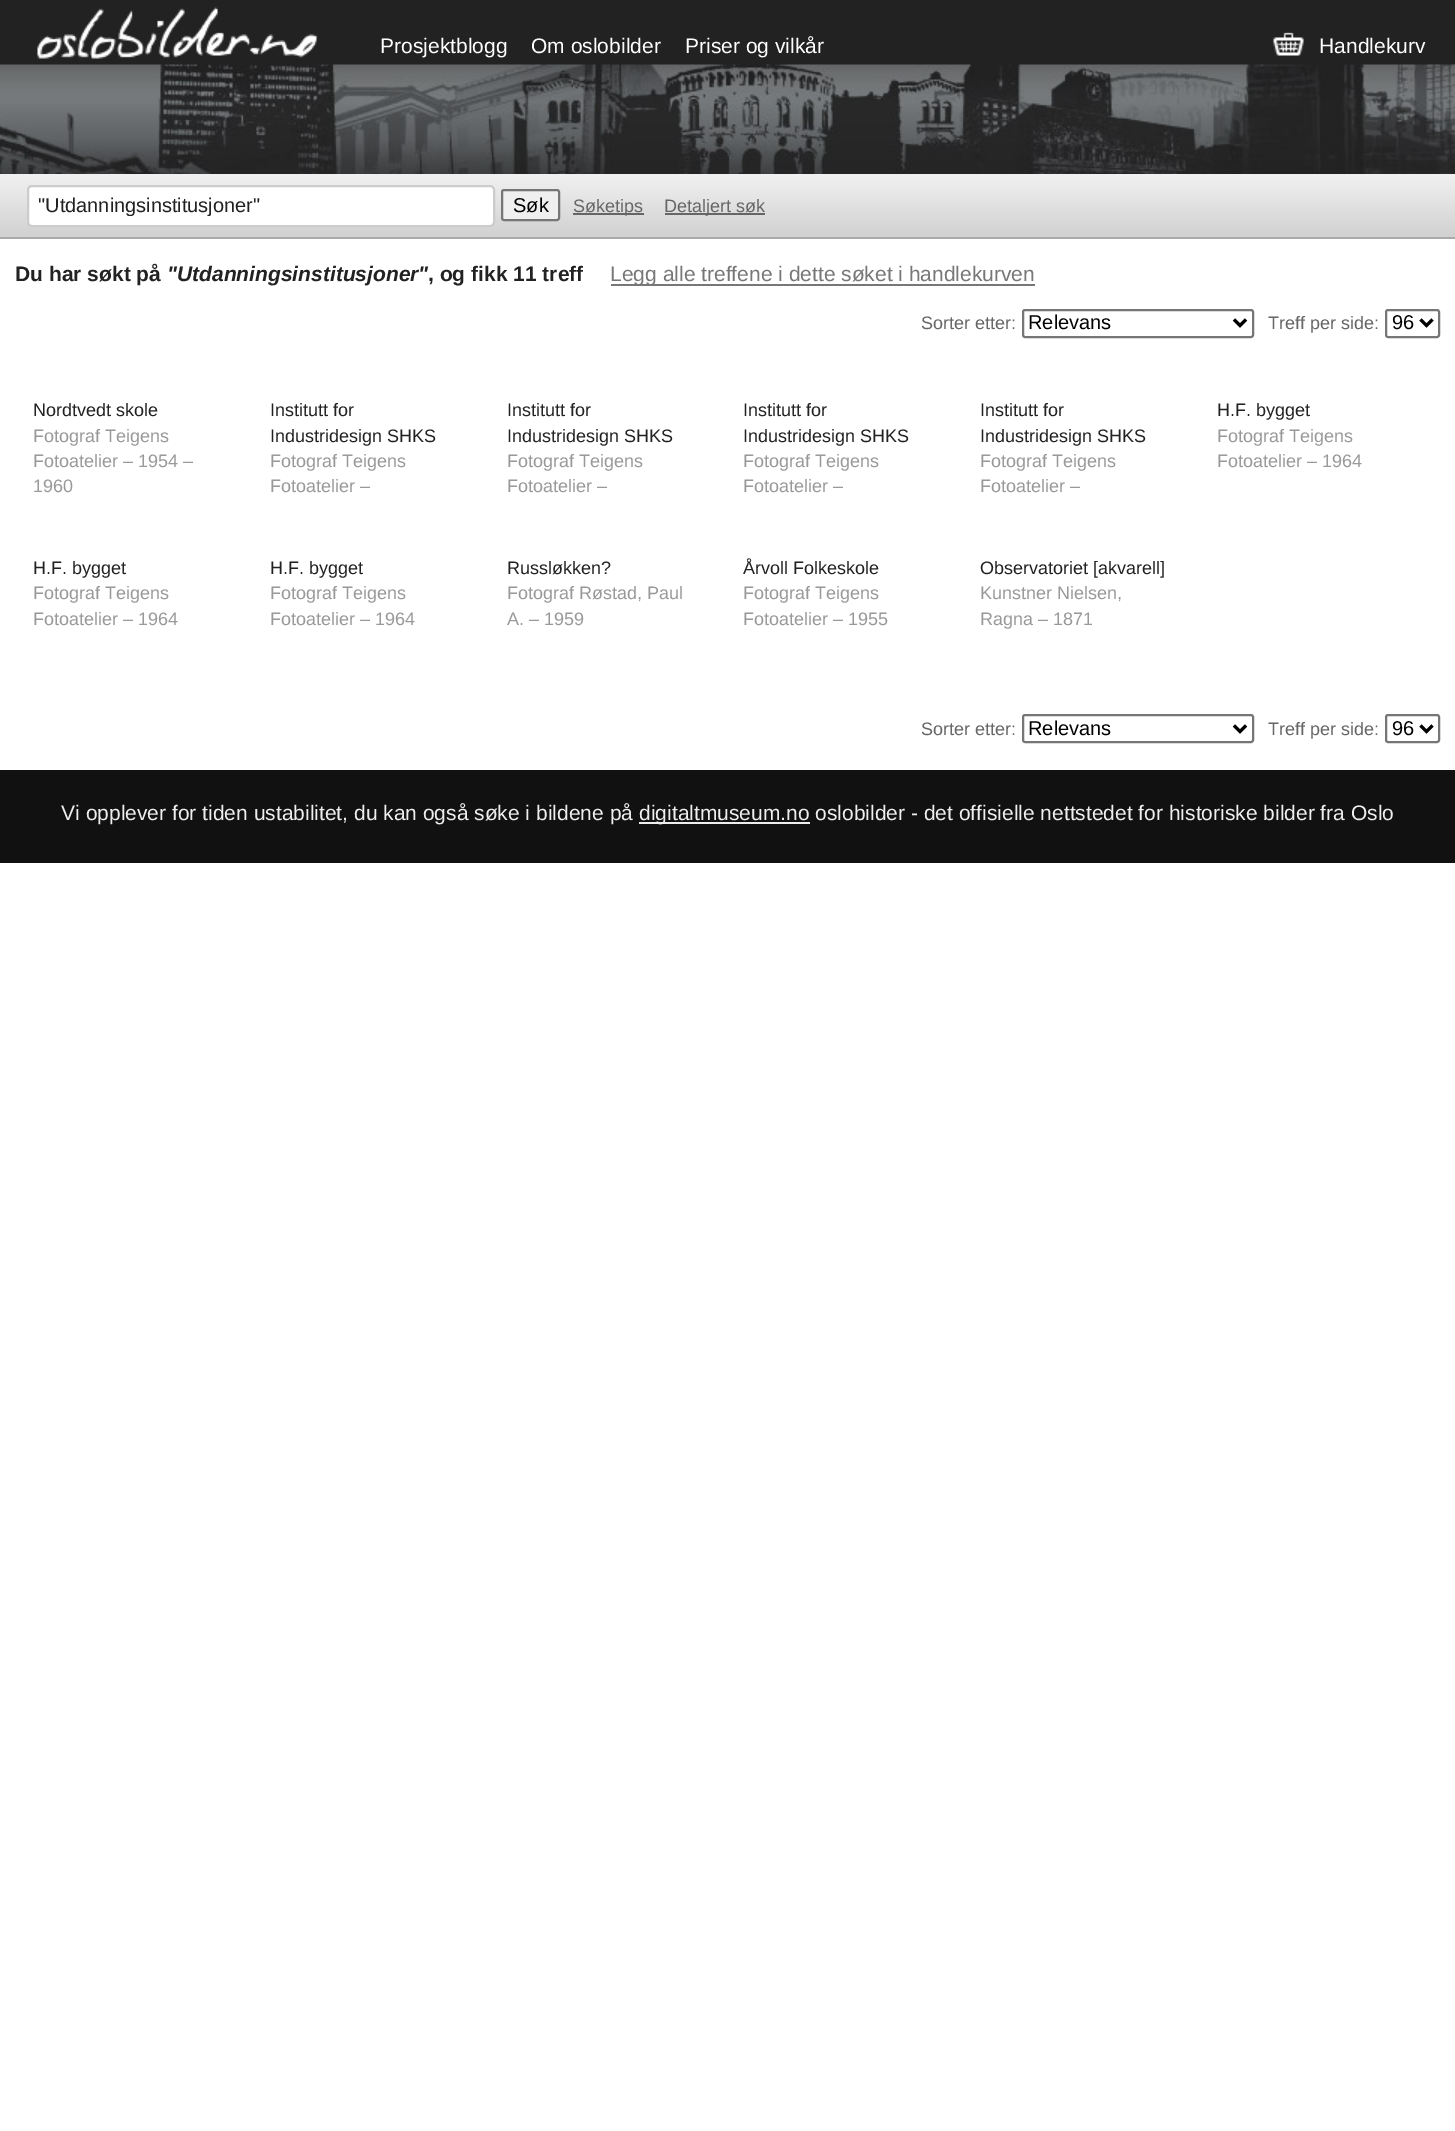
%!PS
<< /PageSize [1455 2131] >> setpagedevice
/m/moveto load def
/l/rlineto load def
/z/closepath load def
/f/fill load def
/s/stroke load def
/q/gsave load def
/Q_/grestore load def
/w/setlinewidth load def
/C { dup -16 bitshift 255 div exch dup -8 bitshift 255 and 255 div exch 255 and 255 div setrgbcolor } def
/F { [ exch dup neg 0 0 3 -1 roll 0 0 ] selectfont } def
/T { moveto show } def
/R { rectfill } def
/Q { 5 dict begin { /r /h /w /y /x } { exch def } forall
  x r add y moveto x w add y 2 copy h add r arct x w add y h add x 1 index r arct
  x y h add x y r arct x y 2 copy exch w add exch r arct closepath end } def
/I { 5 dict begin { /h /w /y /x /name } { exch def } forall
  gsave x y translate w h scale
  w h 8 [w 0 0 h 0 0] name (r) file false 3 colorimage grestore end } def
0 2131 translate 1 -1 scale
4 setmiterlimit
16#FFFFFF C
0 0 1455 2131 R
16#222222 C
0 0 1455 65 R
(1.rgb) 0 64 1455 110 I
(2.rgb) 37 7 281 52 I
/LiberationSans-Regular 21 F
16#FFFFFF C
(Prosjektblogg) 380 53 T
(Om oslobilder) 531 53 T
(Priser og vilkår) 685 53 T
(3.rgb) 1273 32 31 24 I
(Handlekurv) 1319 53 T
q 0 174 m 1455 0 l 0 63 l -1455 0 l z clip newpath
<< /ShadingType 2 /ColorSpace /DeviceRGB /Coords [728 174 728 237] /Extend [true true] /Function << /FunctionType 2 /Domain [0 1] /C0 [.945 .945 .945] /C1 [.82 .82 .82] /N 1 >> >> shfill Q_
16#AAAAAA C
0 237 1455 2 R
16#FFFFFF C
28 186 466 40 4 Q q f Q_
16#CCCCCC C
2 w
s
q
38 194 445 22 rectclip
/LiberationSans-Regular 20 F
16#222222 C
("Utdanningsinstitusjoner") 38 212 T
Q_
16#EFEFEF C
502 190 57 30 2 Q q f Q_
16#767676 C
s
/LiberationSans-Regular 20 F
16#000000 C
(Søk) 513 212 T
16#666666 C
573 213 71 2 R
/LiberationSans-Regular 18 F
(Søketips) 573 212 T
665 213 100 2 R
(Detaljert søk) 664 212 T
/LiberationSans-Bold 21 F
16#222222 C
(Du har søkt på) 15 281 T
/LiberationSans-BoldItalic 21 F
("Utdanningsinstitusjoner") 167 281 T
/LiberationSans-Bold 21 F
(, og fikk 11 treff) 428 281 T
16#777777 C
611 284 424 2 R
/LiberationSans-Regular 21 F
(Legg alle treffene i dette søket i handlekurven) 610 281 T
/LiberationSans-Regular 18 F
16#666666 C
(Sorter etter:) 921 329 T
16#767676 C
1023 310 230 27 2 Q s
16#000000 C
3 w
1234 319.5 m 6 6 l 6 -6 l s
/LiberationSans-Regular 20 F
(Relevans) 1028 329 T
/LiberationSans-Regular 18 F
16#666666 C
(Treff per side:) 1268 329 T
16#767676 C
2 w
1386 310 53 27 2 Q s
16#000000 C
3 w
1420.5 319.5 m 6 6 l 6 -6 l s
/LiberationSans-Regular 20 F
(96) 1392 329 T
/LiberationSans-Regular 18 F
16#222222 C
(Nordtvedt skole) 33 416 T
16#999999 C
(Fotograf Teigens) 33 442 T
(Fotoatelier – 1954 –) 33 467 T
(1960) 33 492 T
16#222222 C
(Institutt for) 270 416 T
(Industridesign SHKS) 270 442 T
16#999999 C
(Fotograf Teigens) 270 467 T
(Fotoatelier –) 270 492 T
16#222222 C
(Institutt for) 507 416 T
(Industridesign SHKS) 507 442 T
16#999999 C
(Fotograf Teigens) 507 467 T
(Fotoatelier –) 507 492 T
16#222222 C
(Institutt for) 743 416 T
(Industridesign SHKS) 743 442 T
16#999999 C
(Fotograf Teigens) 743 467 T
(Fotoatelier –) 743 492 T
16#222222 C
(Institutt for) 980 416 T
(Industridesign SHKS) 980 442 T
16#999999 C
(Fotograf Teigens) 980 467 T
(Fotoatelier –) 980 492 T
16#222222 C
(H.F. bygget) 1217 416 T
16#999999 C
(Fotograf Teigens) 1217 442 T
(Fotoatelier – 1964) 1217 467 T
16#222222 C
(H.F. bygget) 33 574 T
16#999999 C
(Fotograf Teigens) 33 599 T
(Fotoatelier – 1964) 33 625 T
16#222222 C
(H.F. bygget) 270 574 T
16#999999 C
(Fotograf Teigens) 270 599 T
(Fotoatelier – 1964) 270 625 T
16#222222 C
(Russløkken?) 507 574 T
16#999999 C
(Fotograf Røstad, Paul) 507 599 T
(A. – 1959) 507 625 T
16#222222 C
(Årvoll Folkeskole) 743 574 T
16#999999 C
(Fotograf Teigens) 743 599 T
(Fotoatelier – 1955) 743 625 T
16#222222 C
(Observatoriet [akvarell]) 980 574 T
16#999999 C
(Kunstner Nielsen,) 980 599 T
(Ragna – 1871) 980 625 T
16#666666 C
(Sorter etter:) 921 735 T
16#767676 C
2 w
1023 715 230 27 2 Q s
16#000000 C
3 w
1234 725.5 m 6 6 l 6 -6 l s
/LiberationSans-Regular 20 F
(Relevans) 1028 735 T
/LiberationSans-Regular 18 F
16#666666 C
(Treff per side:) 1268 735 T
16#767676 C
2 w
1386 715 53 27 2 Q s
16#000000 C
3 w
1420.5 725.5 m 6 6 l 6 -6 l s
/LiberationSans-Regular 20 F
(96) 1392 735 T
16#111111 C
0 770 1455 93 R
/LiberationSans-Regular 21 F
16#EEEEEE C
(Vi opplever for tiden ustabilitet, du kan også søke i bildene på) 61 820 T
639 822 171 2 R
(digitaltmuseum.no oslobilder - det offisielle nettstedet for historiske bilder fra Oslo) 639 820 T
showpage
